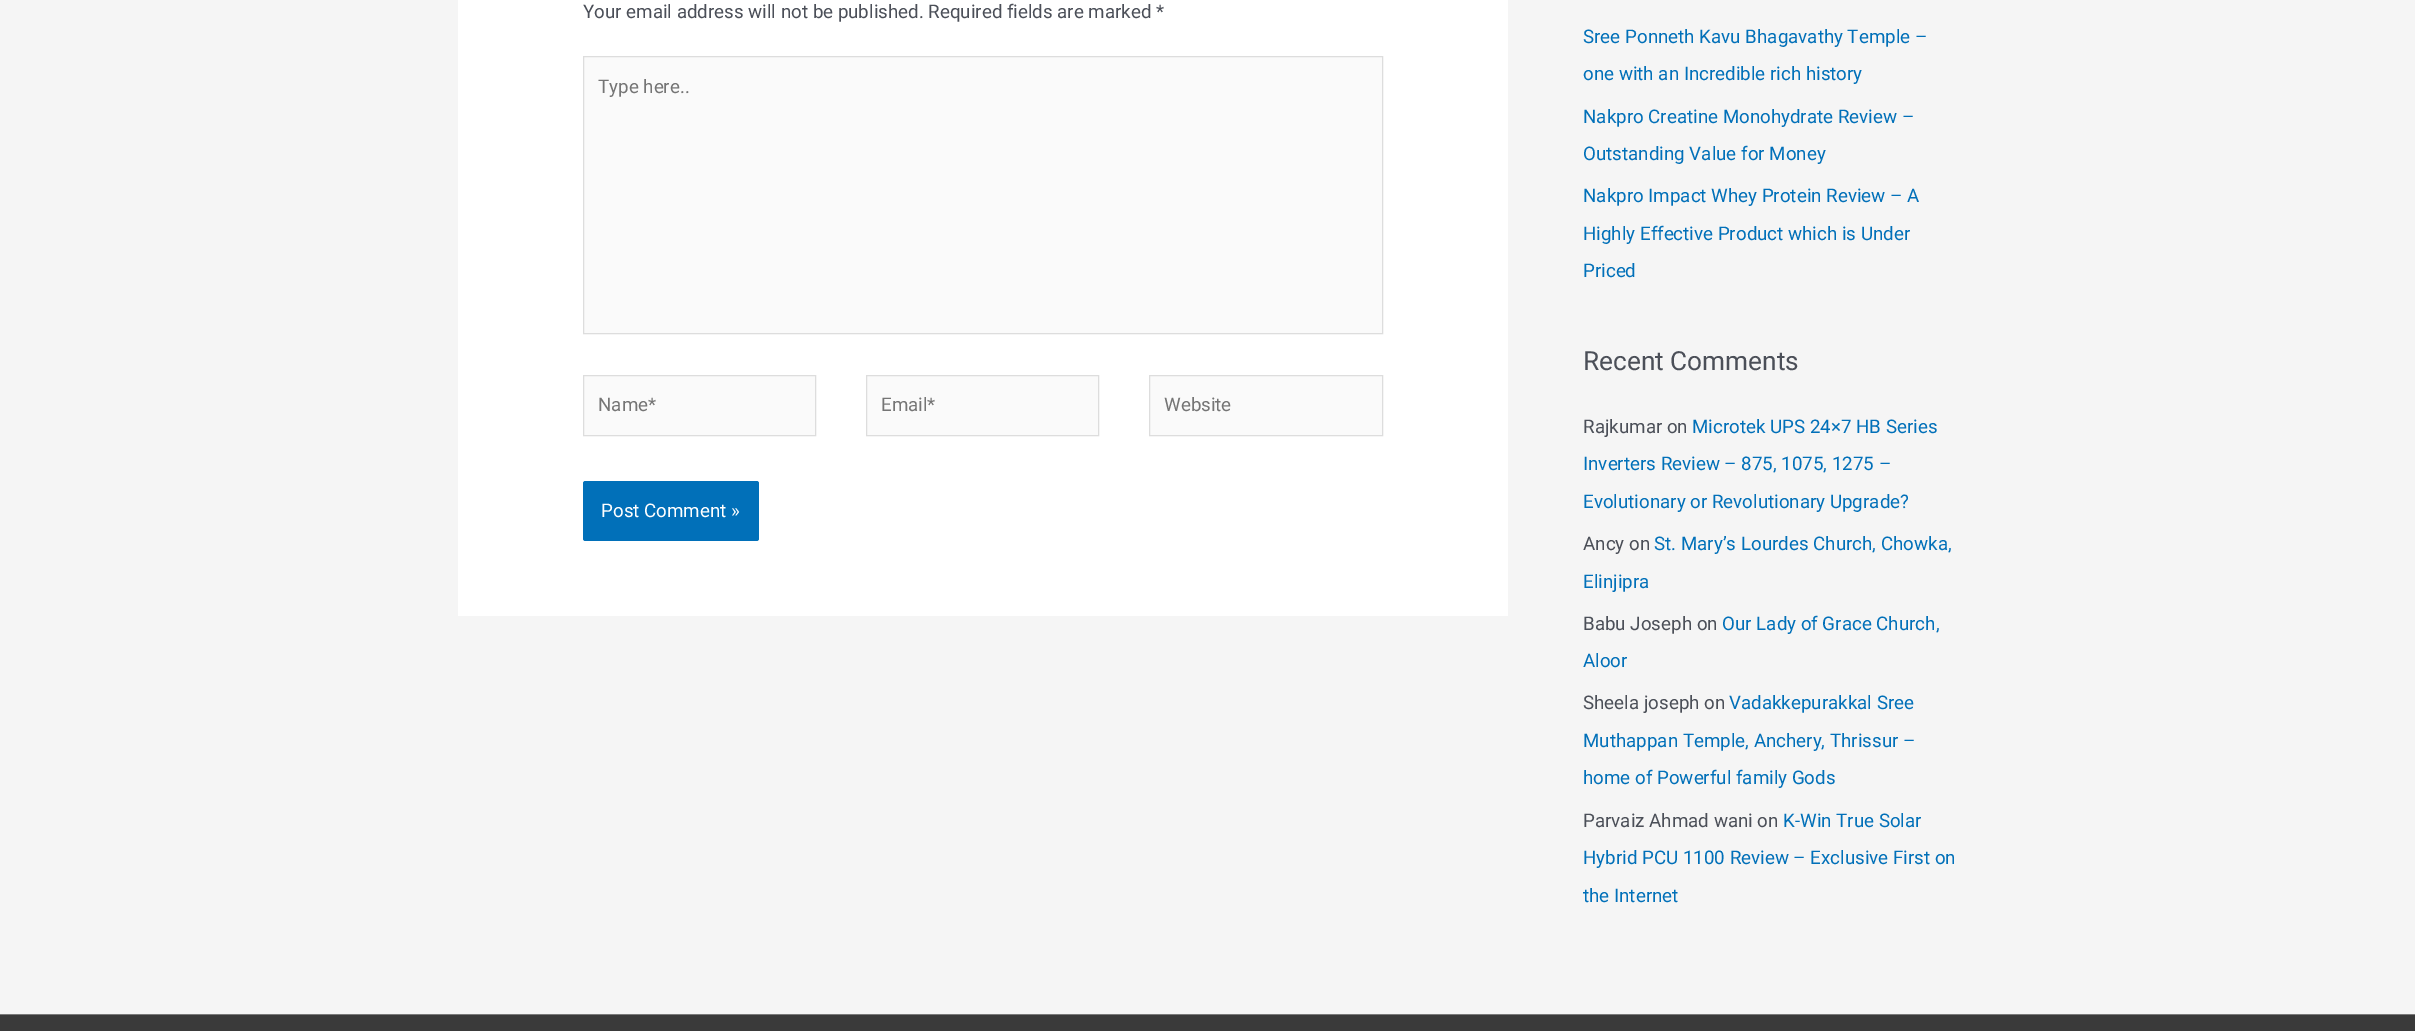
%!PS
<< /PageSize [2415 1031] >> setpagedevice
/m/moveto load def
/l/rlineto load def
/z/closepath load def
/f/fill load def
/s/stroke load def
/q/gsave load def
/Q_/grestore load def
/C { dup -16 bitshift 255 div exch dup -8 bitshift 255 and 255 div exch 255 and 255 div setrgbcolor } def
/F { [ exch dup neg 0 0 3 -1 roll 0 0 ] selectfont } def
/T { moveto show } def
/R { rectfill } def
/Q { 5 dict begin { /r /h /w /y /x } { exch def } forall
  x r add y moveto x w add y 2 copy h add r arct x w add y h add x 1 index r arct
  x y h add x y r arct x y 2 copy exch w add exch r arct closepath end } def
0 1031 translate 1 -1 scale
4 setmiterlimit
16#F5F5F5 C
0 0 2415 1031 R
16#FFFFFF C
458 0 1050 616 R
/Roboto-Regular 18.75 F
16#4B4F58 C
(Your email address will not be published. Required fields are marked *) 583 18 T
16#FAFAFA C
583.5 56.5 m 799 0 l 0 277 l -799 0 l z q f Q_
16#DDDDDD C
s
16#757575 C
(Type here..) 598 93 T
16#FAFAFA C
583.5 375.5 m 232 0 l 0 60 l -232 0 l z q f Q_
16#DDDDDD C
s
16#757575 C
(Name*) 598 411 T
16#FAFAFA C
866.5 375.5 m 232 0 l 0 60 l -232 0 l z q f Q_
16#DDDDDD C
s
16#757575 C
(Email*) 881 411 T
16#FAFAFA C
1149.5 375.5 m 233 0 l 0 60 l -233 0 l z q f Q_
16#DDDDDD C
s
16#757575 C
(Website) 1164 411 T
16#0170B9 C
583 481 176 60 2.5 Q f
16#FFFFFF C
(Post Comment ») 601 517 T
16#0170B9 C
(Sree Ponneth Kavu Bhagavathy Temple –) 1583 43 T
(one with an Incredible rich history) 1583 80 T
(Nakpro Creatine Monohydrate Review –) 1583 123 T
(Outstanding Value for Money) 1583 160 T
(Nakpro Impact Whey Protein Review – A) 1583 202 T
(Highly Effective Product which is Under) 1583 240 T
(Priced) 1583 277 T
/Roboto-Regular 26.25 F
16#4B4F58 C
(Recent Comments) 1583 370 T
/Roboto-Regular 18.75 F
(Rajkumar on) 1583 433 T
16#0170B9 C
(Microtek UPS 24×7 HB Series) 1692 433 T
(Inverters Review – 875, 1075, 1275 –) 1583 470 T
(Evolutionary or Revolutionary Upgrade?) 1583 508 T
16#4B4F58 C
(Ancy on) 1583 550 T
16#0170B9 C
(St. Mary’s Lourdes Church, Chowka,) 1654 550 T
(Elinjipra) 1583 588 T
16#4B4F58 C
(Babu Joseph on) 1583 630 T
16#0170B9 C
(Our Lady of Grace Church,) 1722 630 T
(Aloor) 1583 667 T
16#4B4F58 C
(Sheela joseph on) 1583 709 T
16#0170B9 C
(Vadakkepurakkal Sree) 1729 709 T
(Muthappan Temple, Anchery, Thrissur –) 1583 747 T
(home of Powerful family Gods) 1583 784 T
16#4B4F58 C
(Parvaiz Ahmad wani on) 1583 827 T
16#0170B9 C
(K-Win True Solar) 1783 827 T
(Hybrid PCU 1100 Review – Exclusive First on) 1583 864 T
(the Internet) 1583 902 T
16#7A7A7A C
0 1014 2415 1 R
16#3A3A3A C
0 1015 2415 16 R
showpage
